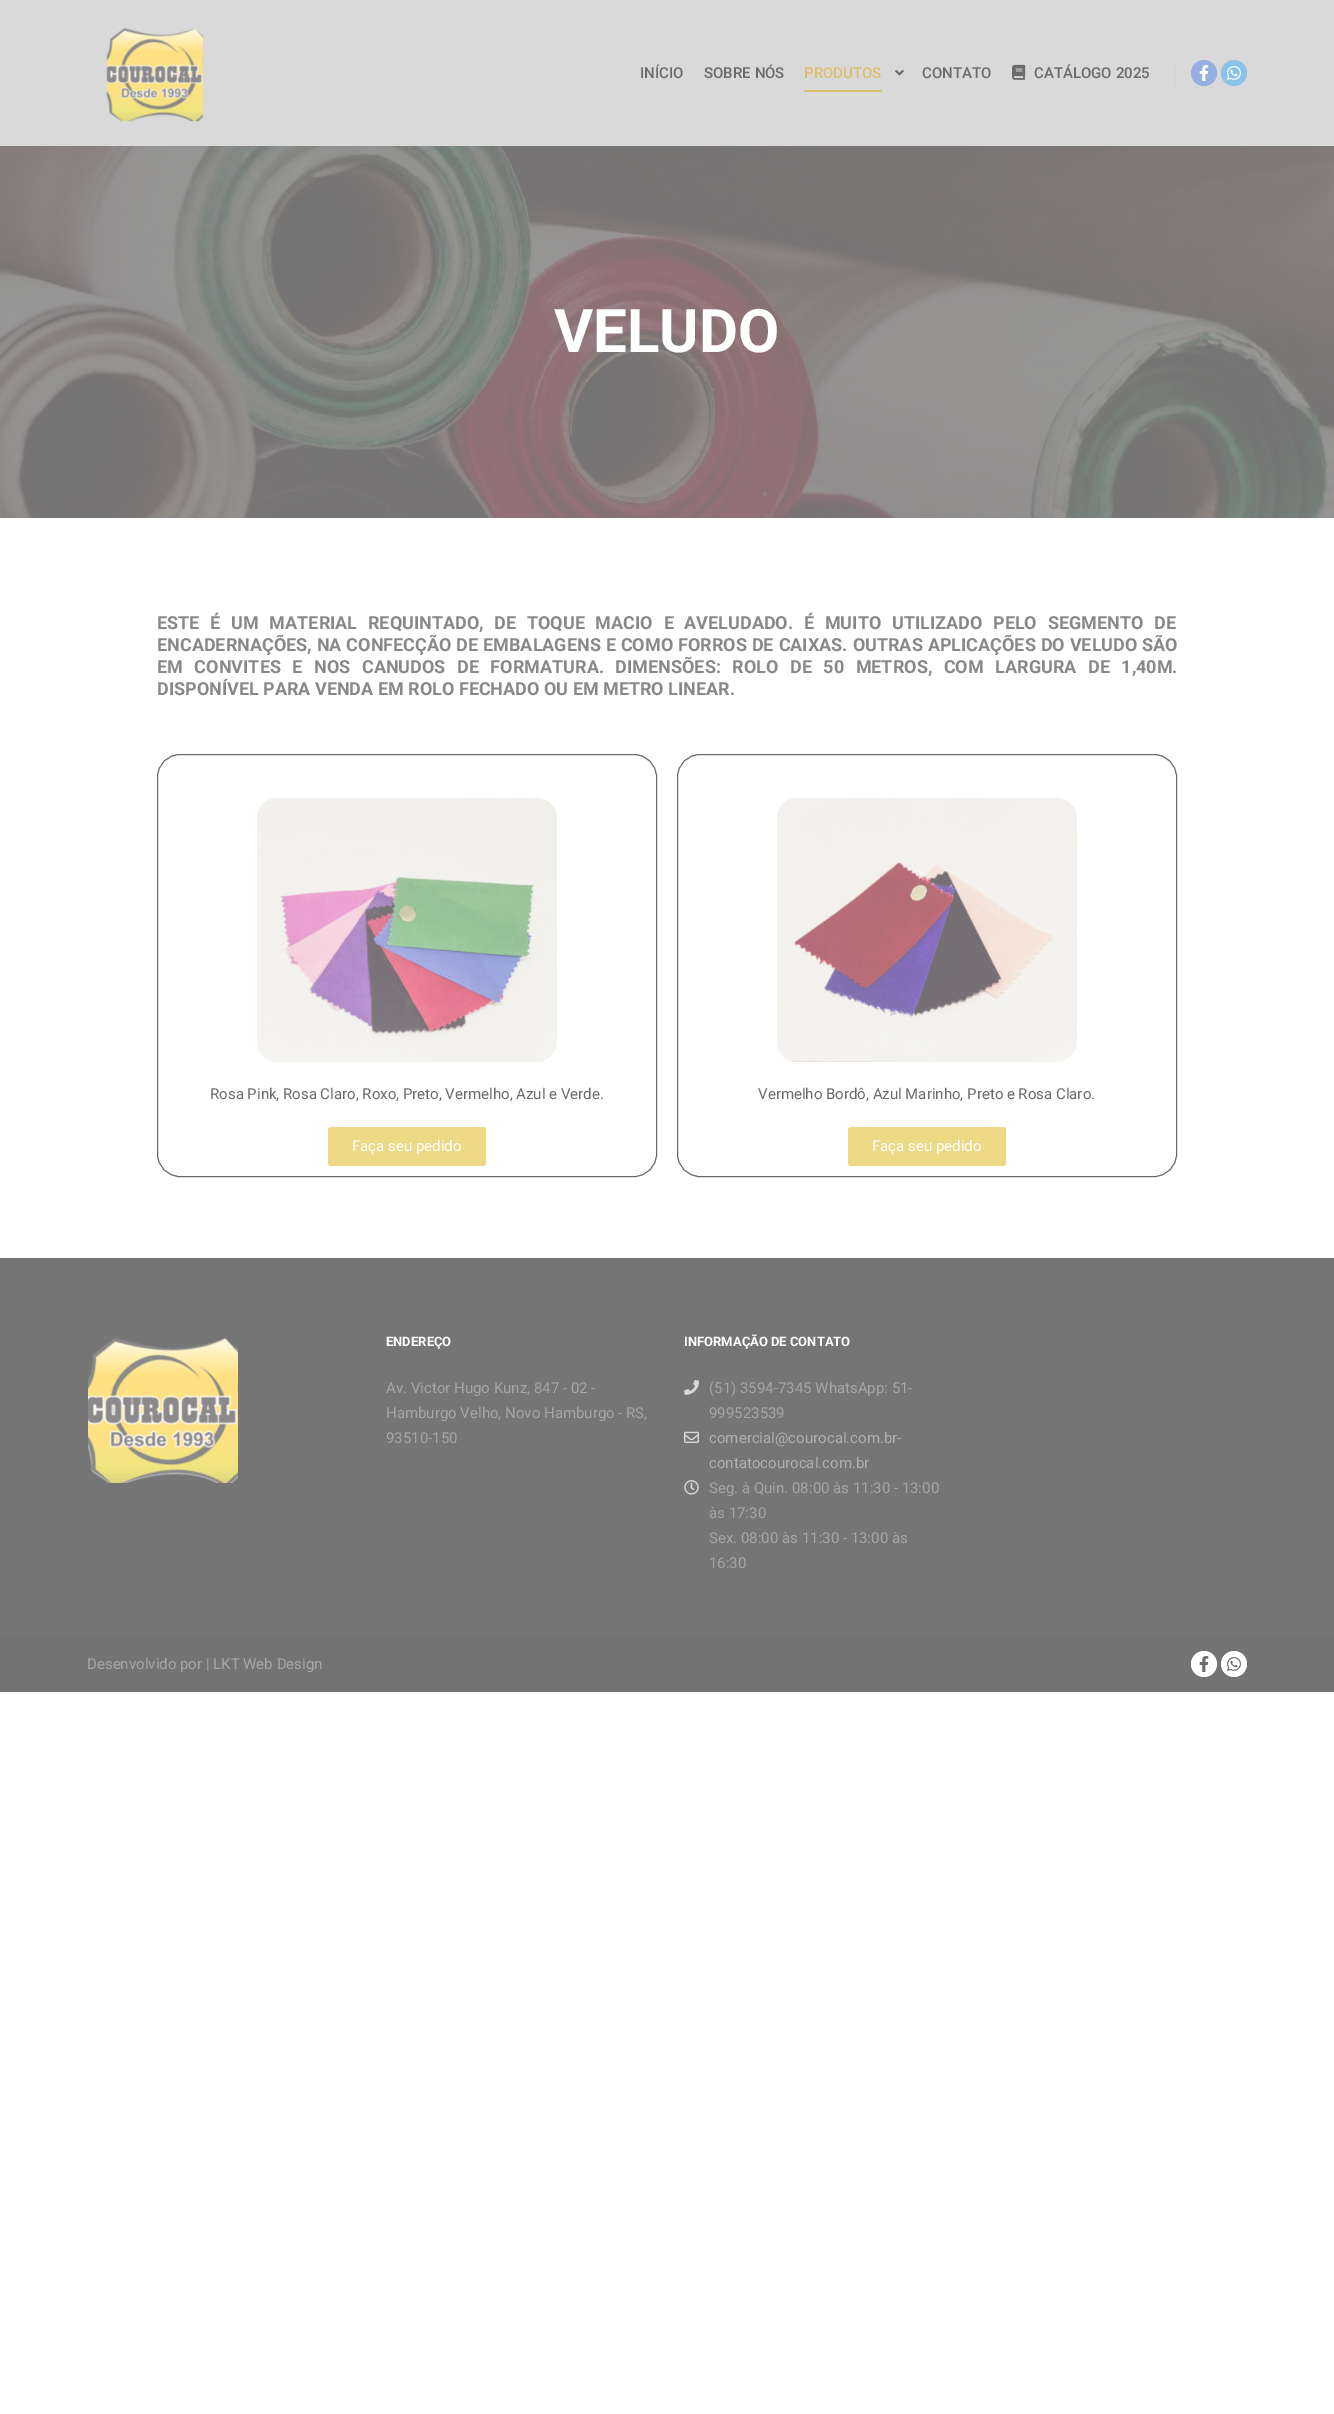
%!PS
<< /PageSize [1334 2414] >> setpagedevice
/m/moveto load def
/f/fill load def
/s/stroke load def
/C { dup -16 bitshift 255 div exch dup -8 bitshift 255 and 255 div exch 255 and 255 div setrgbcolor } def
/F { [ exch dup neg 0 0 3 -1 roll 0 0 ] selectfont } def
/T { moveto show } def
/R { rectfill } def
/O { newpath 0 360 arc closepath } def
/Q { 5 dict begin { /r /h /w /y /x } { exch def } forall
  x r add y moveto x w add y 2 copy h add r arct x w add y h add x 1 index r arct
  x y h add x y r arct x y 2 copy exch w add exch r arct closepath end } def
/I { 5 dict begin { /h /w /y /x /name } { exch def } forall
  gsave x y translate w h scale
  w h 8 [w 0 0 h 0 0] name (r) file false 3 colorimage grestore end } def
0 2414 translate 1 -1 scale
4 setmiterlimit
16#FFFFFF C
0 0 1334 2414 R
16#D9D9D9 C
0 0 1334 146 R
(1.rgb) 106 27 98 95 I
/Roboto-Medium 15 F
16#6B6B6B C
(INÍCIO) 640 78 T
(SOBRE NÓS) 704 78 T
16#DBBF6B C
(PRODUTOS) 804 78 T
804 90 78 2 R
(2.rgb) 895 70 9 6 I
16#6B6B6B C
(CONTATO) 922 78 T
(3.rgb) 1012 64 14 16 I
(CATÁLOGO 2025) 1034 78 T
16#D4D4D4 C
1175 61 1 25 R
16#96AEE0 C
1204 73 13 O f
(4.rgb) 1199 65 10 16 I
16#89C3EA C
1234 73 13 O f
(5.rgb) 1227 66 14 14 I
(6.rgb) 0 146 1334 372 I
/Roboto-Bold 60 F
16#FFFFFF C
(VELUDO) 554 352 T
/Roboto-Bold 18 F
16#888888 C
157 629 m 6.25 0 32 (ESTE É UM MATERIAL REQUINTADO, DE TOQUE MACIO E AVELUDADO. É MUITO UTILIZADO PELO SEGMENTO DE) widthshow
157 651 m .5 0 32 (ENCADERNAÇÕES, NA CONFECÇÃO DE EMBALAGENS E COMO FORROS DE CAIXAS. OUTRAS APLICAÇÕES DO VELUDO SÃO) widthshow
157 673 m 7.1 0 32 (EM CONVITES E NOS CANUDOS DE FORMATURA. DIMENSÕES: ROLO DE 50 METROS, COM LARGURA DE 1,40M.) widthshow
(DISPONÍVEL PARA VENDA EM ROLO FECHADO OU EM METRO LINEAR.) 157 695 T
16#6B6B6B C
157.5 754.5 499 422 22.5 Q s
(7.rgb) 257 798 300 264 I
/Roboto-Regular 15 F
(Rosa Pink, Rosa Claro, Roxo, Preto, Vermelho, Azul e Verde.) 210 1099 T
16#EDD985 C
328 1127 158 39 3 Q f
16#FFFFFF C
(Faça seu pedido) 352 1151 T
16#6B6B6B C
677.5 754.5 499 422 22.5 Q s
(8.rgb) 777 798 300 264 I
(Vermelho Bordô, Azul Marinho, Preto e Rosa Claro.) 758 1099 T
16#EDD985 C
848 1127 158 39 3 Q f
16#FFFFFF C
(Faça seu pedido) 872 1151 T
16#757575 C
0 1258 1334 378 R
(9.rgb) 88 1337 150 146 I
/Roboto-Bold 13 F
16#FFFFFF C
(ENDEREÇO) 386 1346 T
/Roboto-Regular 15 F
16#A6A6A6 C
(Av. Victor Hugo Kunz, 847 - 02 -) 386 1393 T
(Hamburgo Velho, Novo Hamburgo - RS,) 386 1418 T
(93510-150) 386 1443 T
/Roboto-Bold 13 F
16#FFFFFF C
(INFORMAÇÃO DE CONTATO) 684 1346 T
(10.rgb) 684 1379 15 16 I
/Roboto-Regular 15 F
16#A6A6A6 C
(\(51\) 3594-7345 WhatsApp: 51-) 709 1393 T
(999523539) 709 1418 T
(11.rgb) 684 1431 15 12 I
16#B0B0B0 C
(comercial@courocal.com.br-) 709 1443 T
(contatocourocal.com.br) 709 1468 T
(12.rgb) 684 1480 15 15 I
16#A6A6A6 C
(Seg. à Quin. 08:00 às 11:30 - 13:00) 709 1493 T
(às 17:30) 709 1518 T
(Sex. 08:00 às 11:30 - 13:00 às) 709 1543 T
(16:30) 709 1568 T
16#737373 C
0 1636 1334 56 R
16#A6A6A6 C
(Desenvolvido por | LKT Web Design) 87 1669 T
16#FFFFFF C
1204 1664 13 O f
(13.rgb) 1199 1656 10 16 I
1234 1664 13 O f
(14.rgb) 1227 1657 14 14 I
showpage
